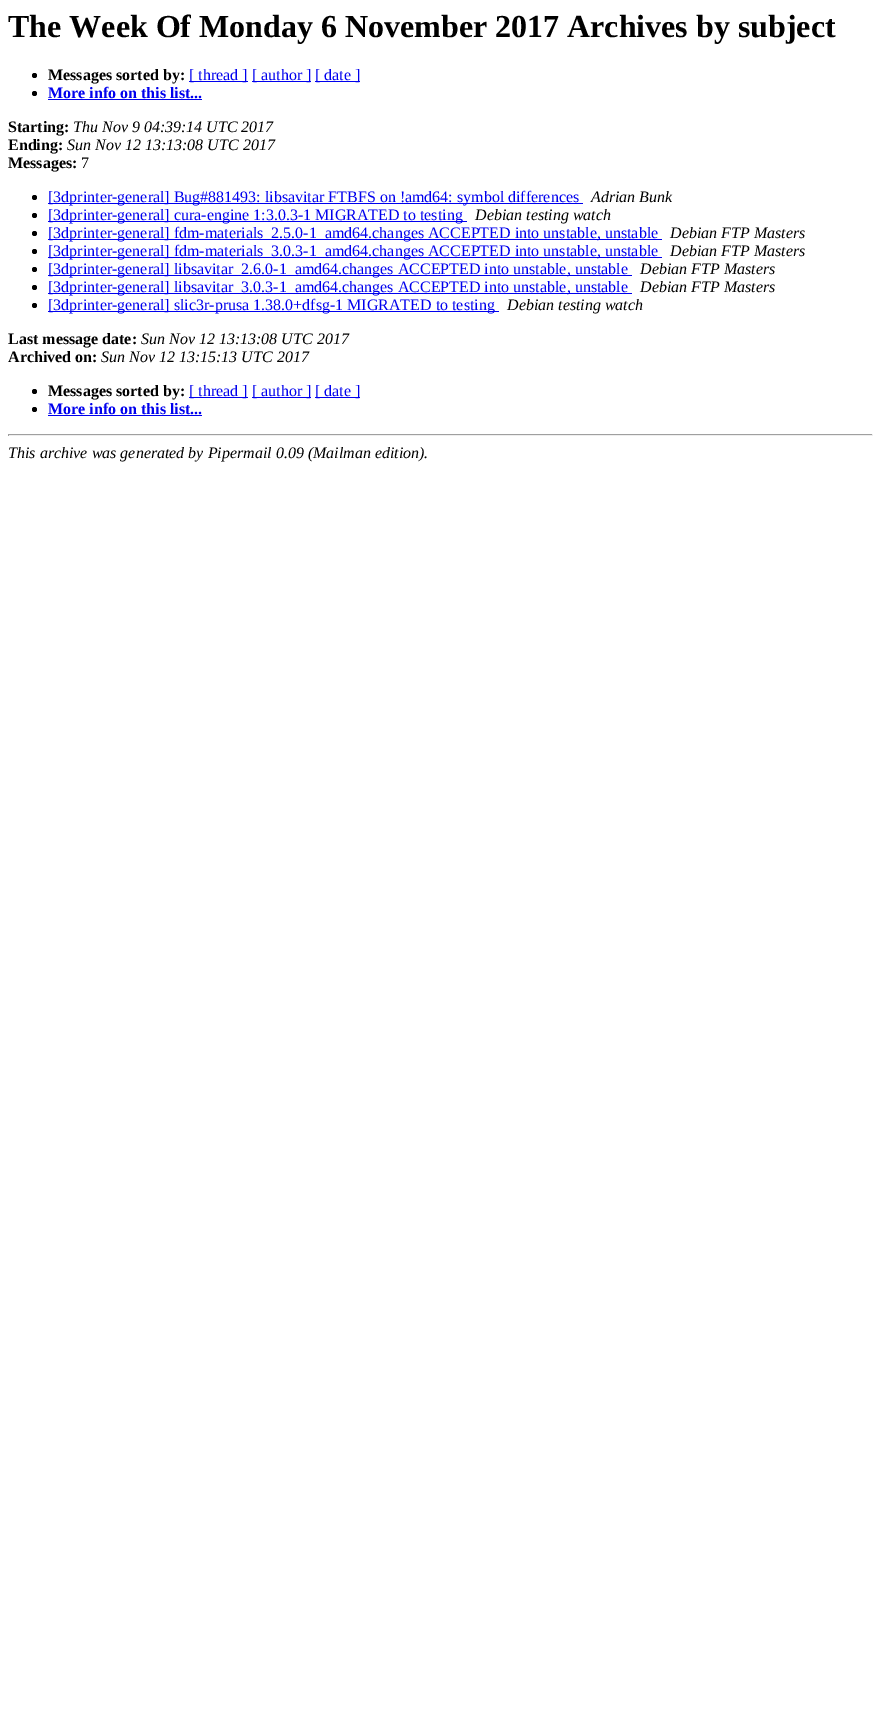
%!PS
<< /PageSize [881 1721] >> setpagedevice
/f/fill load def
/C { dup -16 bitshift 255 div exch dup -8 bitshift 255 and 255 div exch 255 and 255 div setrgbcolor } def
/F { [ exch dup neg 0 0 3 -1 roll 0 0 ] selectfont } def
/T { moveto show } def
/R { rectfill } def
/O { newpath 0 360 arc closepath } def
0 1721 translate 1 -1 scale
4 setmiterlimit
16#FFFFFF C
0 0 881 1721 R
/LiberationSerif-Bold 32 F
16#000000 C
(The Week Of Monday 6 November 2017 Archives by subject) 8 37 T
34.5 75.5 2.5 O f
/LiberationSerif-Bold 16 F
(Messages sorted by:) 48 80 T
16#0000EE C
189 81 59 1 R
/LiberationSerif-Regular 16 F
([ thread ]) 189 80 T
252 81 59 1 R
([ author ]) 252 80 T
315 81 45 1 R
([ date ]) 315 80 T
16#000000 C
34.5 93.5 2.5 O f
/LiberationSerif-Bold 16 F
16#0000EE C
(More info on this list...) 48 98 T
48 99 154 1 R
16#000000 C
(Starting:) 8 132 T
/LiberationSerif-Italic 16 F
(Thu Nov 9 04:39:14 UTC 2017) 73 132 T
/LiberationSerif-Bold 16 F
(Ending:) 8 150 T
/LiberationSerif-Italic 16 F
(Sun Nov 12 13:13:08 UTC 2017) 67 150 T
/LiberationSerif-Bold 16 F
(Messages:) 8 168 T
/LiberationSerif-Regular 16 F
(7) 81 168 T
34.5 197.5 2.5 O f
16#0000EE C
48 203 535 1 R
([3dprinter-general] Bug#881493: libsavitar FTBFS on !amd64: symbol differences) 48 202 T
/LiberationSerif-Italic 16 F
16#000000 C
(Adrian Bunk) 591 202 T
34.5 215.5 2.5 O f
16#0000EE C
48 221 419 1 R
/LiberationSerif-Regular 16 F
([3dprinter-general] cura-engine 1:3.0.3-1 MIGRATED to testing) 48 220 T
/LiberationSerif-Italic 16 F
16#000000 C
(Debian testing watch) 475 220 T
34.5 233.5 2.5 O f
16#0000EE C
48 239 614 1 R
/LiberationSerif-Regular 16 F
([3dprinter-general] fdm-materials_2.5.0-1_amd64.changes ACCEPTED into unstable, unstable) 48 238 T
/LiberationSerif-Italic 16 F
16#000000 C
(Debian FTP Masters) 670 238 T
34.5 251.5 2.5 O f
16#0000EE C
48 257 614 1 R
/LiberationSerif-Regular 16 F
([3dprinter-general] fdm-materials_3.0.3-1_amd64.changes ACCEPTED into unstable, unstable) 48 256 T
/LiberationSerif-Italic 16 F
16#000000 C
(Debian FTP Masters) 670 256 T
34.5 269.5 2.5 O f
16#0000EE C
48 275 584 1 R
/LiberationSerif-Regular 16 F
([3dprinter-general] libsavitar_2.6.0-1_amd64.changes ACCEPTED into unstable, unstable) 48 274 T
/LiberationSerif-Italic 16 F
16#000000 C
(Debian FTP Masters) 640 274 T
34.5 287.5 2.5 O f
16#0000EE C
48 293 584 1 R
/LiberationSerif-Regular 16 F
([3dprinter-general] libsavitar_3.0.3-1_amd64.changes ACCEPTED into unstable, unstable) 48 292 T
/LiberationSerif-Italic 16 F
16#000000 C
(Debian FTP Masters) 640 292 T
34.5 305.5 2.5 O f
16#0000EE C
48 311 451 1 R
/LiberationSerif-Regular 16 F
([3dprinter-general] slic3r-prusa 1.38.0+dfsg-1 MIGRATED to testing) 48 310 T
/LiberationSerif-Italic 16 F
16#000000 C
(Debian testing watch) 507 310 T
/LiberationSerif-Bold 16 F
(Last message date:) 8 344 T
/LiberationSerif-Italic 16 F
(Sun Nov 12 13:13:08 UTC 2017) 141 344 T
/LiberationSerif-Bold 16 F
(Archived on:) 8 362 T
/LiberationSerif-Italic 16 F
(Sun Nov 12 13:15:13 UTC 2017) 101 362 T
34.5 391.5 2.5 O f
/LiberationSerif-Bold 16 F
(Messages sorted by:) 48 396 T
16#0000EE C
189 397 59 1 R
/LiberationSerif-Regular 16 F
([ thread ]) 189 396 T
252 397 59 1 R
([ author ]) 252 396 T
315 397 45 1 R
([ date ]) 315 396 T
16#000000 C
34.5 409.5 2.5 O f
/LiberationSerif-Bold 16 F
16#0000EE C
(More info on this list...) 48 414 T
48 415 154 1 R
16#9F9F9F C
8 434 865 1 R
16#EEEEEE C
872 434 1 2 R
8 435 865 1 R
16#9F9F9F C
8 434 1 2 R
/LiberationSerif-Italic 16 F
16#000000 C
(This archive was generated by Pipermail 0.09 \(Mailman edition\).) 8 458 T
showpage
